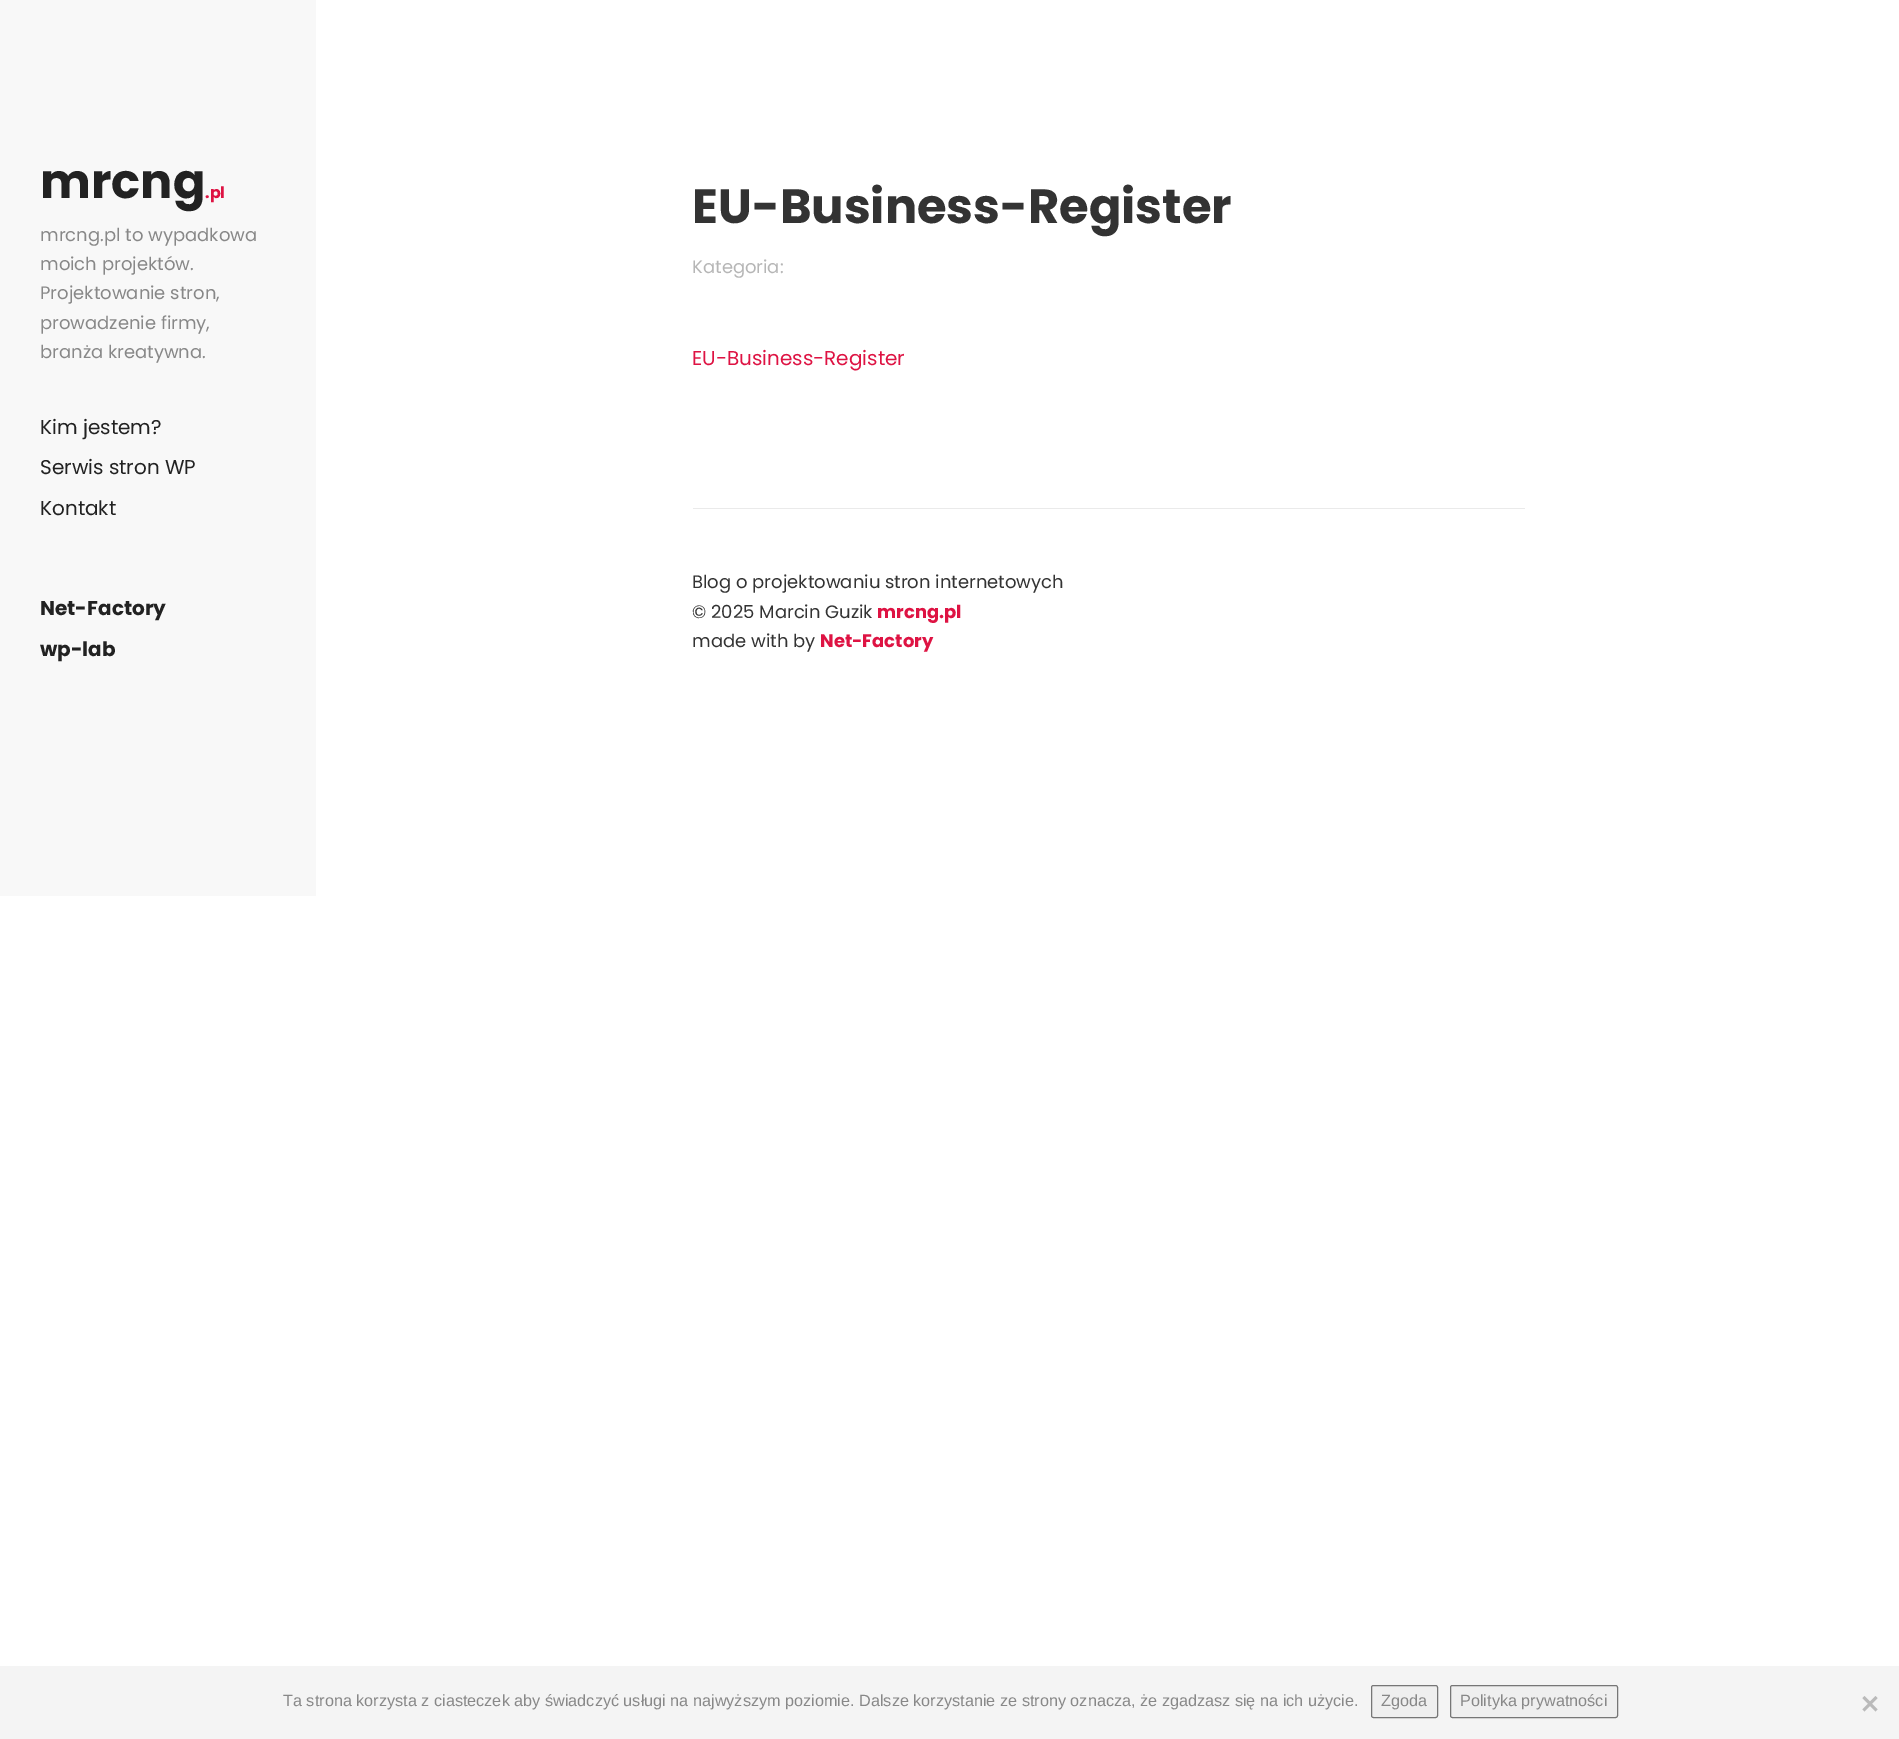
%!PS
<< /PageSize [1899 1739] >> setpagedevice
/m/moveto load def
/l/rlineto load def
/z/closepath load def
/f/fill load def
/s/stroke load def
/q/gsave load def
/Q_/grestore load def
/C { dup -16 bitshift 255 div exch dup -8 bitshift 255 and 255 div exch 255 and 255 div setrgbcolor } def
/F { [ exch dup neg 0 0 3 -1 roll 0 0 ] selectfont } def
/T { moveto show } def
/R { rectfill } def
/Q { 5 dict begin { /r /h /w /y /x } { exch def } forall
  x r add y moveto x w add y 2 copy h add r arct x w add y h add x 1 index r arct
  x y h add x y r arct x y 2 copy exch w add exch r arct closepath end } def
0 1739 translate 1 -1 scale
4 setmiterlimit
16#FFFFFF C
0 0 1899 1739 R
16#F8F8F8 C
0 0 316 896 R
/Poppins-Bold 48 F
16#222222 C
(mrcng) 40 198 T
/Poppins-Bold 16 F
16#DE1343 C
(.pl) 205 198 T
/Poppins-Regular 18 F
16#888888 C
(mrcng.pl to wypadkowa) 40 241 T
(moich projektów.) 40 270 T
(Projektowanie stron,) 40 299 T
(prowadzenie firmy,) 40 329 T
(branża kreatywna.) 40 358 T
/Poppins-Regular 20 F
16#222222 C
(Kim jestem?) 40 434 T
(Serwis stron WP) 40 474 T
(Kontakt) 40 515 T
/Poppins-Bold 20 F
(Net-Factory) 40 615 T
(wp-lab) 40 656 T
/Poppins-Bold 48 F
16#333333 C
(EU-Business-Register) 692 223 T
/Poppins-Regular 18 F
16#B6B6B6 C
(Kategoria:) 692 273 T
/Poppins-Regular 20 F
16#DE1343 C
(EU-Business-Register) 692 365 T
16#EAEAEA C
693 508 832 1 R
/Poppins-Regular 18 F
16#333333 C
(Blog o projektowaniu stron internetowych) 692 588 T
(© 2025 Marcin Guzik) 692 618 T
/Poppins-Bold 18 F
16#DE1343 C
(mrcng.pl) 877 618 T
/Poppins-Regular 18 F
16#333333 C
(made with by) 692 647 T
/Poppins-Bold 18 F
16#DE1343 C
(Net-Factory) 820 647 T
16#F4F4F4 C
0 1666 1899 73 R
/LiberationSans-Regular 16.25 F
16#888888 C
(Ta strona korzysta z ciasteczek aby świadczyć usługi na najwyższym poziomie. Dalsze korzystanie ze strony oznacza, że zgadzasz się na ich użycie.) 283 1706 T
16#EFEFEF C
1371.5 1685.5 66 32 2 Q q f Q_
16#767676 C
s
16#888888 C
(Zgoda) 1381 1706 T
16#EFEFEF C
1450.5 1685.5 167 32 2 Q q f Q_
16#767676 C
s
16#888888 C
(Polityka prywatności) 1460 1706 T
16#BABABA C
1875.5 1696 m 2 2 l -13 13.5 l -2 -2 l z f
1862.5 1698 m 2 -2 l 13 13.5 l -2 2 l z f
showpage
